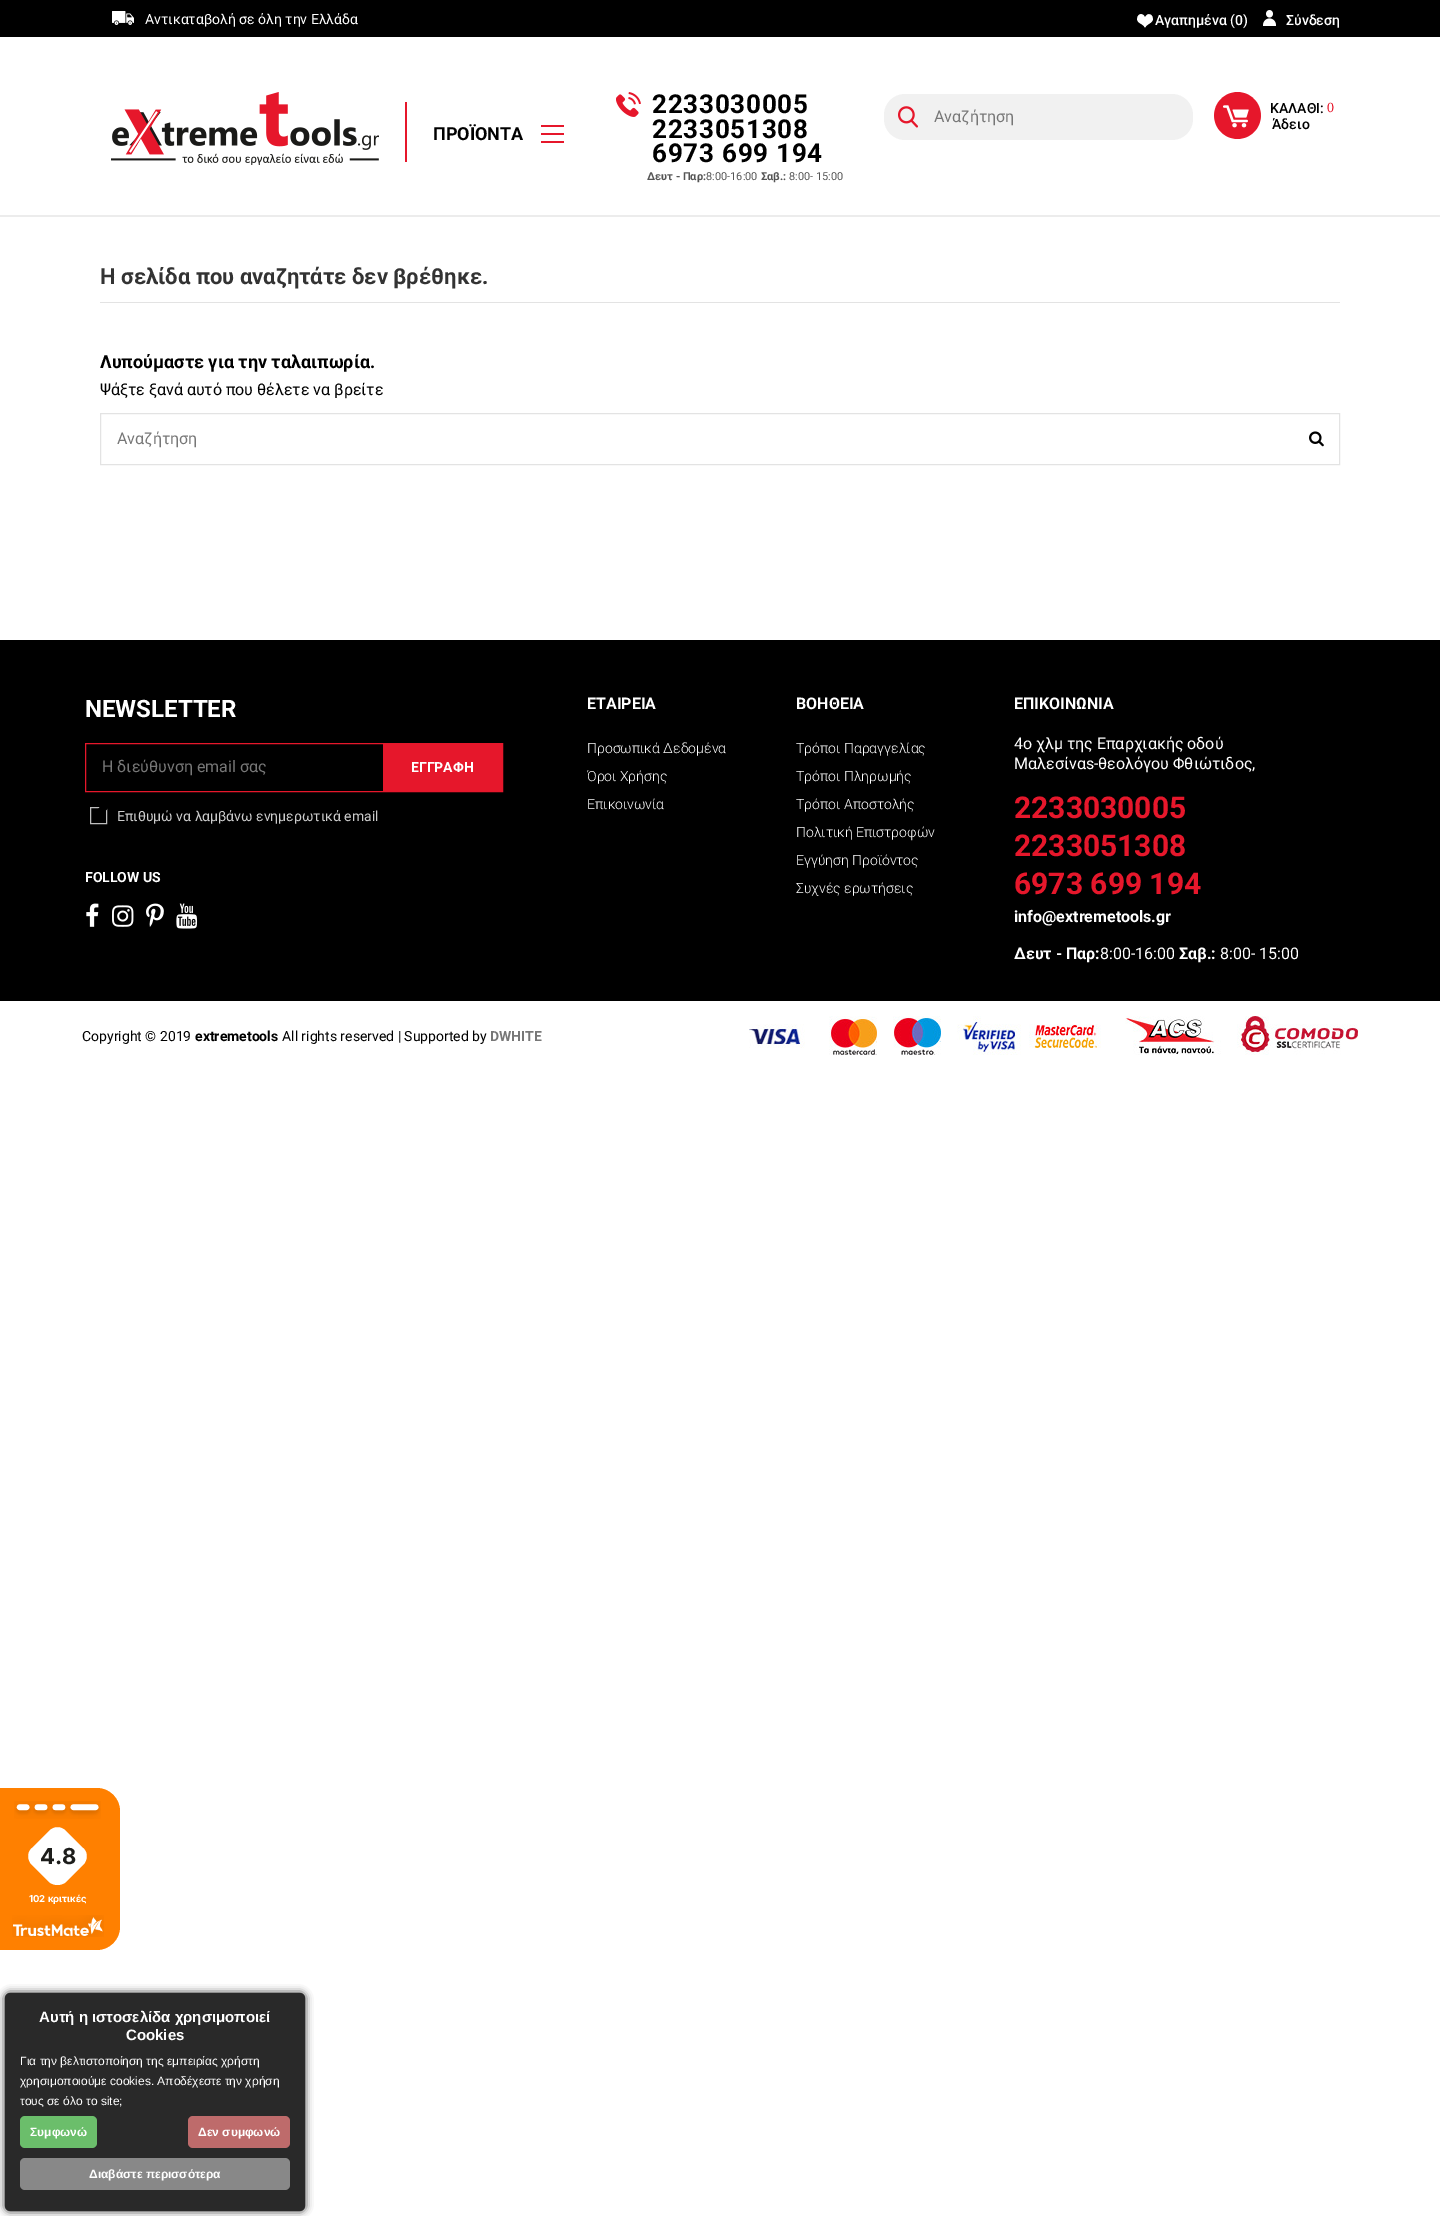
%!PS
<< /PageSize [1440 2216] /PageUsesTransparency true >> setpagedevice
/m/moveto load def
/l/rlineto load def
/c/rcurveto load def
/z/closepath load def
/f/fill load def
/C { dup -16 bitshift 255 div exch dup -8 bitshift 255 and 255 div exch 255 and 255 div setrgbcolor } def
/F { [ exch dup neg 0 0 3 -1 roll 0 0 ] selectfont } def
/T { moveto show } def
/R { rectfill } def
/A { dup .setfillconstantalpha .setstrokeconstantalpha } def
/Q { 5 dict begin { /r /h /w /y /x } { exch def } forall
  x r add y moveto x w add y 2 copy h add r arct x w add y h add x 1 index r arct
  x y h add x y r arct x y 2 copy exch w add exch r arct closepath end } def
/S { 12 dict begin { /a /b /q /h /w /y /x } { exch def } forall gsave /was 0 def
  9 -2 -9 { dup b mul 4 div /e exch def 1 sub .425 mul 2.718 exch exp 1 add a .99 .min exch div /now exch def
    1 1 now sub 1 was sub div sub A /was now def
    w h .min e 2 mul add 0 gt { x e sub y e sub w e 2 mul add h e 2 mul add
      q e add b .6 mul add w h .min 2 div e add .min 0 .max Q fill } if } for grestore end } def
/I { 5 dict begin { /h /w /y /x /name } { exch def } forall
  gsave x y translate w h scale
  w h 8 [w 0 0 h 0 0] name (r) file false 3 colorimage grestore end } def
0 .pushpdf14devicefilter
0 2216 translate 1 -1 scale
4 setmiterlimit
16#FFFFFF C
0 0 1440 2216 R
16#000000 C
0 0 1440 37 R
(1.rgb) 112 11 22 14 I
/Roboto-Regular 14 F
16#FFFFFF C
(Αντικαταβολή σε όλη την Ελλάδα) 145 24 T
(2.rgb) 1137 14 16 14 I
/Roboto-Medium 14 F
(Αγαπημένα \(0\)) 1155 25 T
(3.rgb) 1263 10 13 16 I
(Σύνδεση) 1286 25 T
16#ECECEC C
0 215 1440 2 R
(4.rgb) 111 92 268 73 I
16#E6172B C
405 102 2 60 R
/Roboto-Bold 18 F
16#000000 C
(ΠΡΟΪΟΝΤΑ) 433 140 T
(5.rgb) 541 125 23 18 I
(6.rgb) 616 92 25 25 I
/Roboto-Bold 26 F
652 113 m .75 0 (2233030005) ashow
652 138 m .75 0 (2233051308) ashow
652 162 m .75 0 (6973 699 194) ashow
/Roboto-Bold 11 F
16#555555 C
(Δευτ - Παρ:) 647 180 T
/Roboto-Regular 11 F
(8:00-16:00) 706 180 T
/Roboto-Bold 11 F
(Σαβ.:) 761 180 T
/Roboto-Regular 11 F
(8:00- 15:00) 789 180 T
16#F1F1F1 C
884 94 309 46 21 Q f
(7.rgb) 898 106 20 22 I
/Roboto-Regular 16 F
16#777777 C
(Αναζήτηση) 934 122 T
(8.rgb) 1214 92 47 47 I
/Roboto-Medium 14 F
16#000000 C
(ΚΑΛΑΘΙ:) 1270 113 T
(Άδειο) 1272 129 T
/LiberationSerif-Regular 14 F
16#E6172B C
(0) 1327 112 T
16#E3E3E3 C
100 302 1240 1 R
/Roboto-Bold 22 F
16#333333 C
(Η σελίδα που αναζητάτε δεν βρέθηκε.) 100 284 T
/Roboto-Bold 18 F
16#000000 C
(Λυπούμαστε για την ταλαιπωρία.) 100 368 T
/Roboto-Regular 16 F
(Ψάξτε ξανά αυτό που θέλετε να βρείτε) 100 395 T
16#E3E3E3 C
100.5 413.5 1239 51 rectstroke
16#777777 C
(Αναζήτηση) 117 444 T
(9.rgb) 1309 431 15 16 I
16#FF8000 C
-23 1788 m 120 0 l 12.5 0 23 10.5 23 23 c 0 116 l 0 12.5 -10.5 23 -23 23 c -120 0 l z f
(10.rgb) 14 1801 87 18 I
16#FFFFFF C
66 1831 m 17 17 l 5 4 5 12 0 17 c -17 17 l -5 4 -12 4 -17 0 c -17 -17 l -5 -5 -5 -13 0 -17 c 17 -17 l 5 -5 12 -5 17 0 c z f
/Inter-Bold 22 F
16#1D1D1B C
(4.8) 40 1864 T
/Inter-Bold 9.5 F
16#FFFFFF C
(102 κριτικές) 29 1902 T
(11.rgb) 12 1915 92 22 I
16#000000 C
0 640 1440 361 R
/Roboto-Bold 24 F
16#FFFFFF C
(NEWSLETTER) 85 717 T
16#E6172B C
85.5 743.5 417 48 rectstroke
/Roboto-Regular 16 F
16#777777 C
(Η διεύθυνση email σας) 102 772 T
16#E6172B C
383 744 119 47 R
/Roboto-Bold 14 F
16#FFFFFF C
(ΕΓΓΡΑΦΗ) 411 772 T
16#BDBDBD C
90.5 807.5 16 16 rectstroke
16#000000 C
93.5 814.5 m 11 -13 l 5 4.5 l -11 13 l z f
97 818 m 11 -13 l 1.5 1 l -11 13 l z f
/Roboto-Regular 14 F
16#CCCCCC C
(Επιθυμώ να λαμβάνω ενημερωτικά email) 117 821 T
/Roboto-Bold 14 F
16#FFFFFF C
(FOLLOW US) 85 882 T
(12.rgb) 86 903 13 24 I
(13.rgb) 112 905 22 22 I
(14.rgb) 146 903 18 24 I
(15.rgb) 176 903 22 26 I
/Roboto-Bold 16 F
(ΕΤΑΙΡΕΙΑ) 587 709 T
/Roboto-Light 14 F
(Προσωπικά Δεδομένα) 587 753 T
(Όροι Χρήσης) 587 781 T
(Επικοινωνία) 587 809 T
/Roboto-Bold 16 F
(ΒΟΗΘΕΙΑ) 796 709 T
/Roboto-Light 14 F
(Τρόποι Παραγγελίας) 796 753 T
(Τρόποι Πληρωμής) 796 781 T
(Τρόποι Αποστολής) 796 809 T
(Πολιτική Επιστροφών) 796 837 T
(Εγγύηση Προϊόντος) 796 865 T
(Συχνές ερωτήσεις) 796 893 T
/Roboto-Bold 16 F
(ΕΠΙΚΟΙΝΩΝΙΑ) 1014 709 T
/Roboto-Regular 16 F
(4o χλμ της Επαρχιακής οδού) 1014 749 T
(Μαλεσίναs-θεολόγου Φθιώτιδος,) 1014 769 T
/Roboto-Bold 30 F
16#E6172B C
(2233030005) 1014 818 T
(2233051308) 1014 856 T
(6973 699 194) 1014 894 T
/Roboto-Bold 16 F
16#FFFFFF C
(info@extremetools.gr) 1014 922 T
(Δευτ - Παρ:) 1014 959 T
/Roboto-Regular 16 F
(8:00-16:00) 1100 959 T
/Roboto-Bold 16 F
(Σαβ.:) 1179 959 T
/Roboto-Regular 16 F
(8:00- 15:00) 1220 959 T
/Roboto-Regular 14 F
16#000000 C
(Copyright © 2019) 82 1041 T
/Roboto-Bold 14 F
(extremetools) 195 1041 T
/Roboto-Regular 14 F
(All rights reserved | Supported by) 282 1041 T
/Roboto-Bold 14 F
16#777777 C
(DWHITE) 490 1041 T
(16.rgb) 749 1016 609 39 I
16#1A1A1A C
5 1993 300 218 5 4 1 S
16#292929 C
5 1993 300 218 5 Q f
/LiberationSans-Bold 15 F
16#FFFFFF C
(Αυτή η ιστοσελίδα χρησιμοποιεί) 39 2022 T
(Cookies) 126 2040 T
/LiberationSans-Regular 12 F
(Για την βελτιστοποίηση της εμπειρίας χρήστη) 20 2065 T
(χρησιμοποιούμε cookies. Αποδέχεστε την χρήση) 20 2085 T
(τους σε όλο το site;) 20 2105 T
16#6BBE6B C
20 2116 77 32 5 Q f
/LiberationSans-Bold 12 F
16#FFFFFF C
(Συμφωνώ) 30 2136 T
16#BE6B6B C
188 2116 102 32 5 Q f
16#FFFFFF C
(Δεν συμφωνώ) 198 2136 T
16#888888 C
20 2158 270 32 5 Q f
16#FFFFFF C
(Διαβάστε περισσότερα) 89 2178 T
.poppdf14devicefilter showpage
